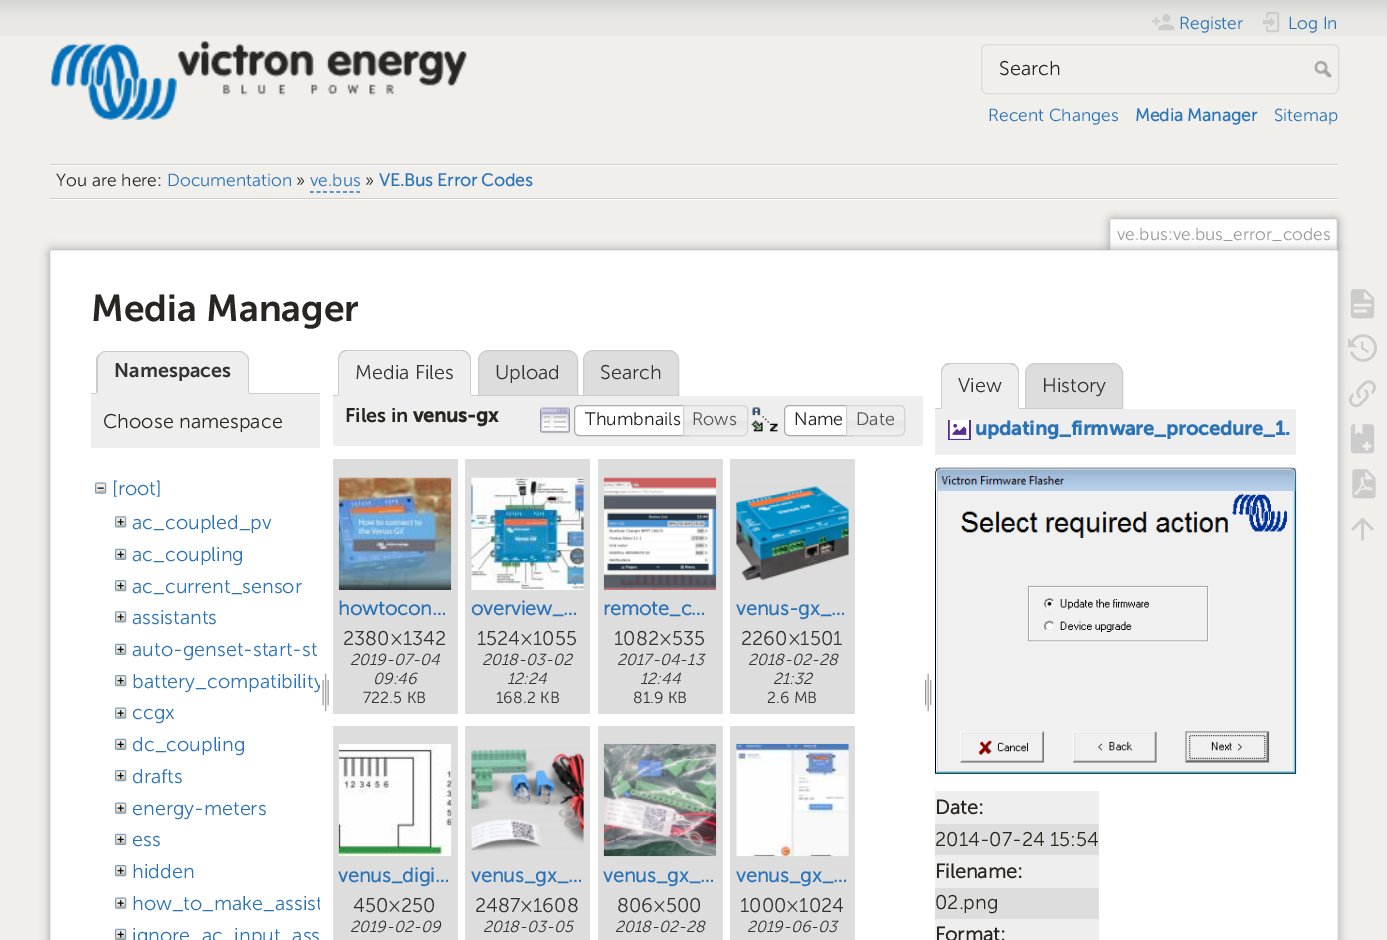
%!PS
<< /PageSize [1387 940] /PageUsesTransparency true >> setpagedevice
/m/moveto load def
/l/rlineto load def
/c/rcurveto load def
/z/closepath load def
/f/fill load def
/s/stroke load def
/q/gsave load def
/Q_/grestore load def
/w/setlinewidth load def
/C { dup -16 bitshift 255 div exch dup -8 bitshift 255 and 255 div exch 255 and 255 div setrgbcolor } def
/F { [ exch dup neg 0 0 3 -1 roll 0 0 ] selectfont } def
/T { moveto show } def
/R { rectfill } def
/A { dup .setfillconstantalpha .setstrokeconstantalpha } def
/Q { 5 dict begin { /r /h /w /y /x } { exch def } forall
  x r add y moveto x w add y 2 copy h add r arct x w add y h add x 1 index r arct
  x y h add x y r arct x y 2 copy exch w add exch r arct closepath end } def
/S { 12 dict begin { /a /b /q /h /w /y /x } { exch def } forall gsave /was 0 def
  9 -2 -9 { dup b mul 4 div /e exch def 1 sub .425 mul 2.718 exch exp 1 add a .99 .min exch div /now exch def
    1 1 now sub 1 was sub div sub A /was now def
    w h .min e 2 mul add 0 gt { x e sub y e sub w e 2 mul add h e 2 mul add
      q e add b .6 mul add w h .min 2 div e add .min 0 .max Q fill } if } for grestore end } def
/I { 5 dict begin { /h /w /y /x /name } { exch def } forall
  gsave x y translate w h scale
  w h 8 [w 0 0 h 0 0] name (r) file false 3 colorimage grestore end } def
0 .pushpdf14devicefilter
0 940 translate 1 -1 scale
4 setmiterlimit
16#F0EFEB C
0 0 1387 940 R
(1.rgb) 0 0 1387 36 I
(2.rgb) 50 40 417 80 I
(3.rgb) 1152 14 23 17 I
/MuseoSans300-Regular 17.4 F
16#2B73B7 C
(Register) 1179 29 T
(4.rgb) 1263 12 17 21 I
(Log In) 1288 29 T
16#DCDBDA C
981.5 44.5 357 49 5.5 Q s
/MuseoSans300-Regular 19.8 F
16#272622 C
(Search) 999 75 T
(5.rgb) 1314 60 18 18 I
/MuseoSans300-Regular 17.4 F
16#2B73B7 C
(Recent Changes) 988 121 T
/MuseoSans300-Bold 17.4 F
(Media Manager) 1135 121 T
/MuseoSans300-Regular 17.4 F
(Sitemap) 1274 121 T
16#CCCCCC C
50 164 1288 1 R
16#FFFFFF C
50 199 1288 1 R
50 165 1288 1 R
16#CCCCCC C
50 198 1288 1 R
16#272622 C
(You are here:) 56 186 T
16#2B73B7 C
(Documentation) 167 186 T
16#272622 C
(») 296 186 T
16#2B73B7 C
(ve.bus) 310 186 T
1.2 w
[3.75 2.86] 0 setdash
310 192 m 50 0 l s
16#272622 C
(») 365 186 T
/MuseoSans300-Bold 17.4 F
16#2B73B7 C
(VE.Bus Error Codes) 379 186 T
q
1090 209 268 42 rectclip
16#999999 C
1110 219 228 32 2.5 4.5 1 S
Q_
16#FFFFFF C
1112 220 m 223 0 l .5 0 1 .5 1 1 c 0 30 l -225 0 l 0 -30 l 0 -.5 .5 -1 1 -1 c z f
16#EEEEEE C
1111 219 225 1 R
1336 220 1 31 R
1110 220 1 31 R
/MuseoSans300-Regular 17.4 F
16#999999 C
(ve.bus:ve.bus_error_codes) 1117 240 T
50 250 1288 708 2.5 5 1 S
16#FFFFFF C
50.5 250.5 1287 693 2 Q q f Q_
16#EEEEEE C
1 w
[] 0 setdash
s
/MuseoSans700-Regular 37.25 F
16#272622 C
(Media Manager) 91 321 T
16#CCCCCC C
91 393 229 1 R
16#EEEEEE C
106 351 m 133 0 l 5.5 0 10 4.5 10 10 c 0 33 l -153 0 l 0 -33 l 0 -5.5 4.5 -10 10 -10 c z f
16#CCCCCC C
106 352 m -3 0 -5 1 -6 3 c -1 -1 l 2 -1 3 -2 5 -3 c 137 0 l 2 1 3 2 5 3 c -1 1 l -1 -2 -3 -3 -6 -3 c z f
246 354 m 1.5 1.5 2.5 3 3 5 c 0 35 l -2 -2 l 1 0 l 0 -31 l 0 -2.5 -1 -5 -2.5 -6.5 c z f
16#EEEEEE C
249 394 m -2 -2 l -149 0 l -2 2 l z f
16#CCCCCC C
96 394 m 0 -35 l .5 -2 1.5 -3.5 3 -5 c 1 1 l -1.5 1.5 -2 3.5 -2 6 c 0 31 l z f
/MuseoSans700-Regular 19.8 F
16#333333 C
(Namespaces) 114 377 T
16#EEEEEE C
91 394 229 54 R
/MuseoSans300-Regular 19.8 F
16#272622 C
(Choose namespace) 103 428 T
(6.rgb) 95 482 12 12 I
16#2B73B7 C
([root]) 112 495 T
(7.rgb) 115 516 12 12 I
(ac_coupled_pv) 132 529 T
(8.rgb) 115 548 12 12 I
(ac_coupling) 132 561 T
(9.rgb) 115 580 12 12 I
(ac_current_sensor) 132 593 T
(7.rgb) 115 611 12 12 I
(assistants) 132 624 T
(8.rgb) 115 643 12 12 I
(auto-genset-start-st) 132 656 T
(9.rgb) 115 675 12 12 I
q
91 460 229 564 rectclip
(battery_compatibility) 132 688 T
Q_
(10.rgb) 115 707 12 12 I
(ccgx) 132 719 T
(8.rgb) 115 738 12 12 I
(dc_coupling) 132 751 T
(9.rgb) 115 770 12 12 I
(drafts) 132 783 T
(10.rgb) 115 802 12 12 I
(energy-meters) 132 815 T
(8.rgb) 115 833 12 12 I
(ess) 132 846 T
(9.rgb) 115 865 12 12 I
(hidden) 132 878 T
(10.rgb) 115 897 12 12 I
q
91 460 229 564 rectclip
(how_to_make_assist) 132 910 T
Q_
(8.rgb) 115 928 12 12 I
(ignore_ac_input_ass) 132 942 T
(11.rgb) 322 672 7 40 I
16#DDDDDD C
488 350.5 m 80 0 l 5 0 9.5 4.5 9.5 9.5 c 0 35.5 l -99 0 l 0 -35.5 l 0 -5 4.5 -9.5 9.5 -9.5 c z q f Q_
16#CCCCCC C
s
333 395 250 1 R
16#EEEEEE C
348 350 m 113 0 l 5.5 0 10 4.5 10 10 c 0 36 l -133 0 l 0 -36 l 0 -5.5 4.5 -10 10 -10 c z f
16#CCCCCC C
347 350 m -3 0 -5 1 -7 3 c 1 1 l 2 -2 4 -3 6 -3 c 114 0 l 3 0 5 1 6 3 c 1 -1 l -1 -2 -4 -3 -7 -3 c z f
468 353 m 2 2 3 4 3 7 c 0 36 l -1 -1 l 0 -35 l 0 -2 -1 -5 -3 -6 c z f
16#EEEEEE C
471 396 m -1 -1 l -131 0 l -1 1 l z f
16#CCCCCC C
340 353 m -1 2 -2 4 -2 7 c 0 36 l 1 -1 l 0 -35 l 0 -2 1 -5 2 -6 c z f
16#333333 C
(Media Files) 355 379 T
(Upload) 495 379 T
16#DDDDDD C
593 350.5 m 76 0 l 5 0 9.5 4.5 9.5 9.5 c 0 35.5 l -95 0 l 0 -35.5 l 0 -5 4.5 -9.5 9.5 -9.5 c z q f Q_
16#CCCCCC C
s
16#333333 C
(Search) 600 379 T
16#EEEEEE C
333 396 590 50 R
/MuseoSans700-Regular 19.8 F
16#272622 C
(Files in) 345 422 T
/MuseoSans700-Bold 19.8 F
(venus-gx) 413 422 T
(12.rgb) 540 407 30 27 I
16#FFFFFF C
579 405 m 111 0 l 0 31 l -111 0 l -3 0 -5 -2 -5 -5 c 0 -21 l 0 -3 2 -5 5 -5 c z f
(13.rgb) 574 405 3 31 I
16#AAAAAA C
579 405.5 m 110.5 0 l 0 30 l -110.5 0 l -2.5 0 -4.5 -2 -4.5 -4.5 c 0 -21 l 0 -2.5 2 -4.5 4.5 -4.5 c z s
/MuseoSans300-Regular 18 F
16#212121 C
(Thumbnails) 585 425 T
(14.rgb) 682 405 65 31 I
16#D3D3D3 C
683.5 405.5 m 59.5 0 l 2.5 0 4.5 2 4.5 4.5 c 0 21 l 0 2.5 -2 4.5 -4.5 4.5 c -59.5 0 l z s
16#555555 C
(Rows) 692 425 T
(15.rgb) 751 407 27 25 I
16#FFFFFF C
789 405 m 64 0 l 0 31 l -64 0 l -3 0 -5 -2 -5 -5 c 0 -21 l 0 -3 2 -5 5 -5 c z f
(13.rgb) 784 405 3 31 I
16#AAAAAA C
789 405.5 m 63.5 0 l 0 30 l -63.5 0 l -2.5 0 -4.5 -2 -4.5 -4.5 c 0 -21 l 0 -2.5 2 -4.5 4.5 -4.5 c z s
16#212121 C
(Name) 794 425 T
(16.rgb) 847 405 58 31 I
16#D3D3D3 C
846.5 405.5 m 53.5 0 l 2.5 0 4.5 2 4.5 4.5 c 0 21 l 0 2.5 -2 4.5 -4.5 4.5 c -53.5 0 l z s
16#555555 C
(Date) 856 425 T
16#DDDDDD C
333 459 125 255 R
(17.rgb) 338 477 114 113 I
/MuseoSans300-Bold 19.8 F
16#2B73B7 C
(howtocon…) 338 615 T
/MuseoSans300-Regular 19.8 F
16#333333 C
(2380×1342) 343 645 T
/MuseoSans300-Italic 16 F
(2019-07-04) 350 665 T
(09:46) 373 684 T
/MuseoSans300-Regular 16 F
(722.5 KB) 363 703 T
16#DDDDDD C
465 459 125 255 R
(18.rgb) 471 477 113 113 I
/MuseoSans300-Bold 19.8 F
16#2B73B7 C
(overview_…) 471 615 T
/MuseoSans300-Regular 19.8 F
16#333333 C
(1524×1055) 477 645 T
/MuseoSans300-Italic 16 F
(2018-03-02) 482 665 T
(12:24) 507 684 T
/MuseoSans300-Regular 16 F
(168.2 KB) 496 703 T
16#DDDDDD C
598 459 125 255 R
(19.rgb) 603 477 114 113 I
/MuseoSans300-Bold 19.8 F
16#2B73B7 C
(remote_c…) 603 615 T
/MuseoSans300-Regular 19.8 F
16#333333 C
(1082×535) 614 645 T
/MuseoSans300-Italic 16 F
(2017-04-13) 617 665 T
(12:44) 640 684 T
/MuseoSans300-Regular 16 F
(81.9 KB) 633 703 T
16#DDDDDD C
730 459 125 255 R
(20.rgb) 736 486 113 95 I
/MuseoSans300-Bold 19.8 F
16#2B73B7 C
(venus-gx_…) 736 615 T
/MuseoSans300-Regular 19.8 F
16#333333 C
(2260×1501) 741 645 T
/MuseoSans300-Italic 16 F
(2018-02-28) 748 665 T
(21:32) 773 684 T
/MuseoSans300-Regular 16 F
(2.6 MB) 767 703 T
16#DDDDDD C
333 726 125 214 R
(21.rgb) 338 744 114 112 I
/MuseoSans300-Bold 19.8 F
16#2B73B7 C
(venus_digi…) 338 882 T
/MuseoSans300-Regular 19.8 F
16#333333 C
(450×250) 353 912 T
/MuseoSans300-Italic 16 F
(2019-02-09) 350 932 T
16#DDDDDD C
465 726 125 214 R
(22.rgb) 471 748 113 103 I
/MuseoSans300-Bold 19.8 F
16#2B73B7 C
(venus_gx_…) 471 882 T
/MuseoSans300-Regular 19.8 F
16#333333 C
(2487×1608) 475 912 T
/MuseoSans300-Italic 16 F
(2018-03-05) 483 932 T
16#DDDDDD C
598 726 125 214 R
(23.rgb) 603 743 114 114 I
/MuseoSans300-Bold 19.8 F
16#2B73B7 C
(venus_gx_…) 603 882 T
/MuseoSans300-Regular 19.8 F
16#333333 C
(806×500) 617 912 T
/MuseoSans300-Italic 16 F
(2018-02-28) 615 932 T
16#DDDDDD C
730 726 125 214 R
(24.rgb) 736 743 113 114 I
/MuseoSans300-Bold 19.8 F
16#2B73B7 C
(venus_gx_…) 736 882 T
/MuseoSans300-Regular 19.8 F
16#333333 C
(1000×1024) 740 912 T
/MuseoSans300-Italic 16 F
(2019-06-03) 747 932 T
(25.rgb) 925 673 7 39 I
16#CCCCCC C
935 408 90 1 R
16#EEEEEE C
951 363 m 58 0 l 5.5 0 10 4.5 10 10 c 0 36 l -78 0 l 0 -36 l 0 -5.5 4.5 -10 10 -10 c z f
q
935 363 188 46 rectclip
16#CCCCCC C
951 364 m -2 0 -4 1 -6 2 c -1 -1 l 4 -3 l 64 0 l 4 3 l -1 1 l -2 -1 -4 -2 -6 -2 c z f
Q_
16#CCCCCC C
1016 365 m 1 2 2 3 3 5 c 0 39 l -1 -1 l 0 -36 l 0 -2 -1 -4 -3 -6 c z f
16#EEEEEE C
1019 409 m -1 -1 l -76 0 l -1 1 l z f
16#CCCCCC C
941 409 m 0 -39 l 1 -2 2 -3 3 -5 c 1 1 l -2 2 -3 4 -3 6 c 0 36 l z f
/MuseoSans300-Regular 19.8 F
16#333333 C
(View) 958 392 T
16#DDDDDD C
1035 363.5 m 78 0 l 5 0 9.5 4.5 9.5 9.5 c 0 35.5 l -97 0 l 0 -35.5 l 0 -5 4.5 -9.5 9.5 -9.5 c z q f Q_
16#CCCCCC C
s
16#333333 C
(History) 1042 392 T
16#EEEEEE C
935 409 361 46 R
(26.rgb) 948 420 23 20 I
/MuseoSans700-Bold 19.8 F
16#2B73B7 C
(updating_firmware_procedure_1.) 975 435 T
(27.rgb) 935 467 362 307 I
16#EEEEEE C
935 791 164 33 R
/MuseoSans300-Bold 19.8 F
16#272622 C
(Date:) 935 814 T
16#DDDDDD C
935 824 164 31 R
/MuseoSans300-Regular 19.8 F
16#272622 C
(2014-07-24 15:54) 935 846 T
16#EEEEEE C
935 855 164 33 R
/MuseoSans300-Bold 19.8 F
16#272622 C
(Filename:) 935 878 T
16#DDDDDD C
935 888 164 31 R
/MuseoSans300-Regular 19.8 F
16#272622 C
(02.png) 935 909 T
16#EEEEEE C
935 919 164 21 R
/MuseoSans300-Bold 19.8 F
16#272622 C
(Format:) 935 941 T
(28.rgb) 1350 289 25 30 I
(29.rgb) 1348 334 29 28 I
(30.rgb) 1349 380 27 28 I
(31.rgb) 1350 424 25 30 I
(32.rgb) 1352 469 24 30 I
(33.rgb) 1351 517 23 24 I
.poppdf14devicefilter showpage
